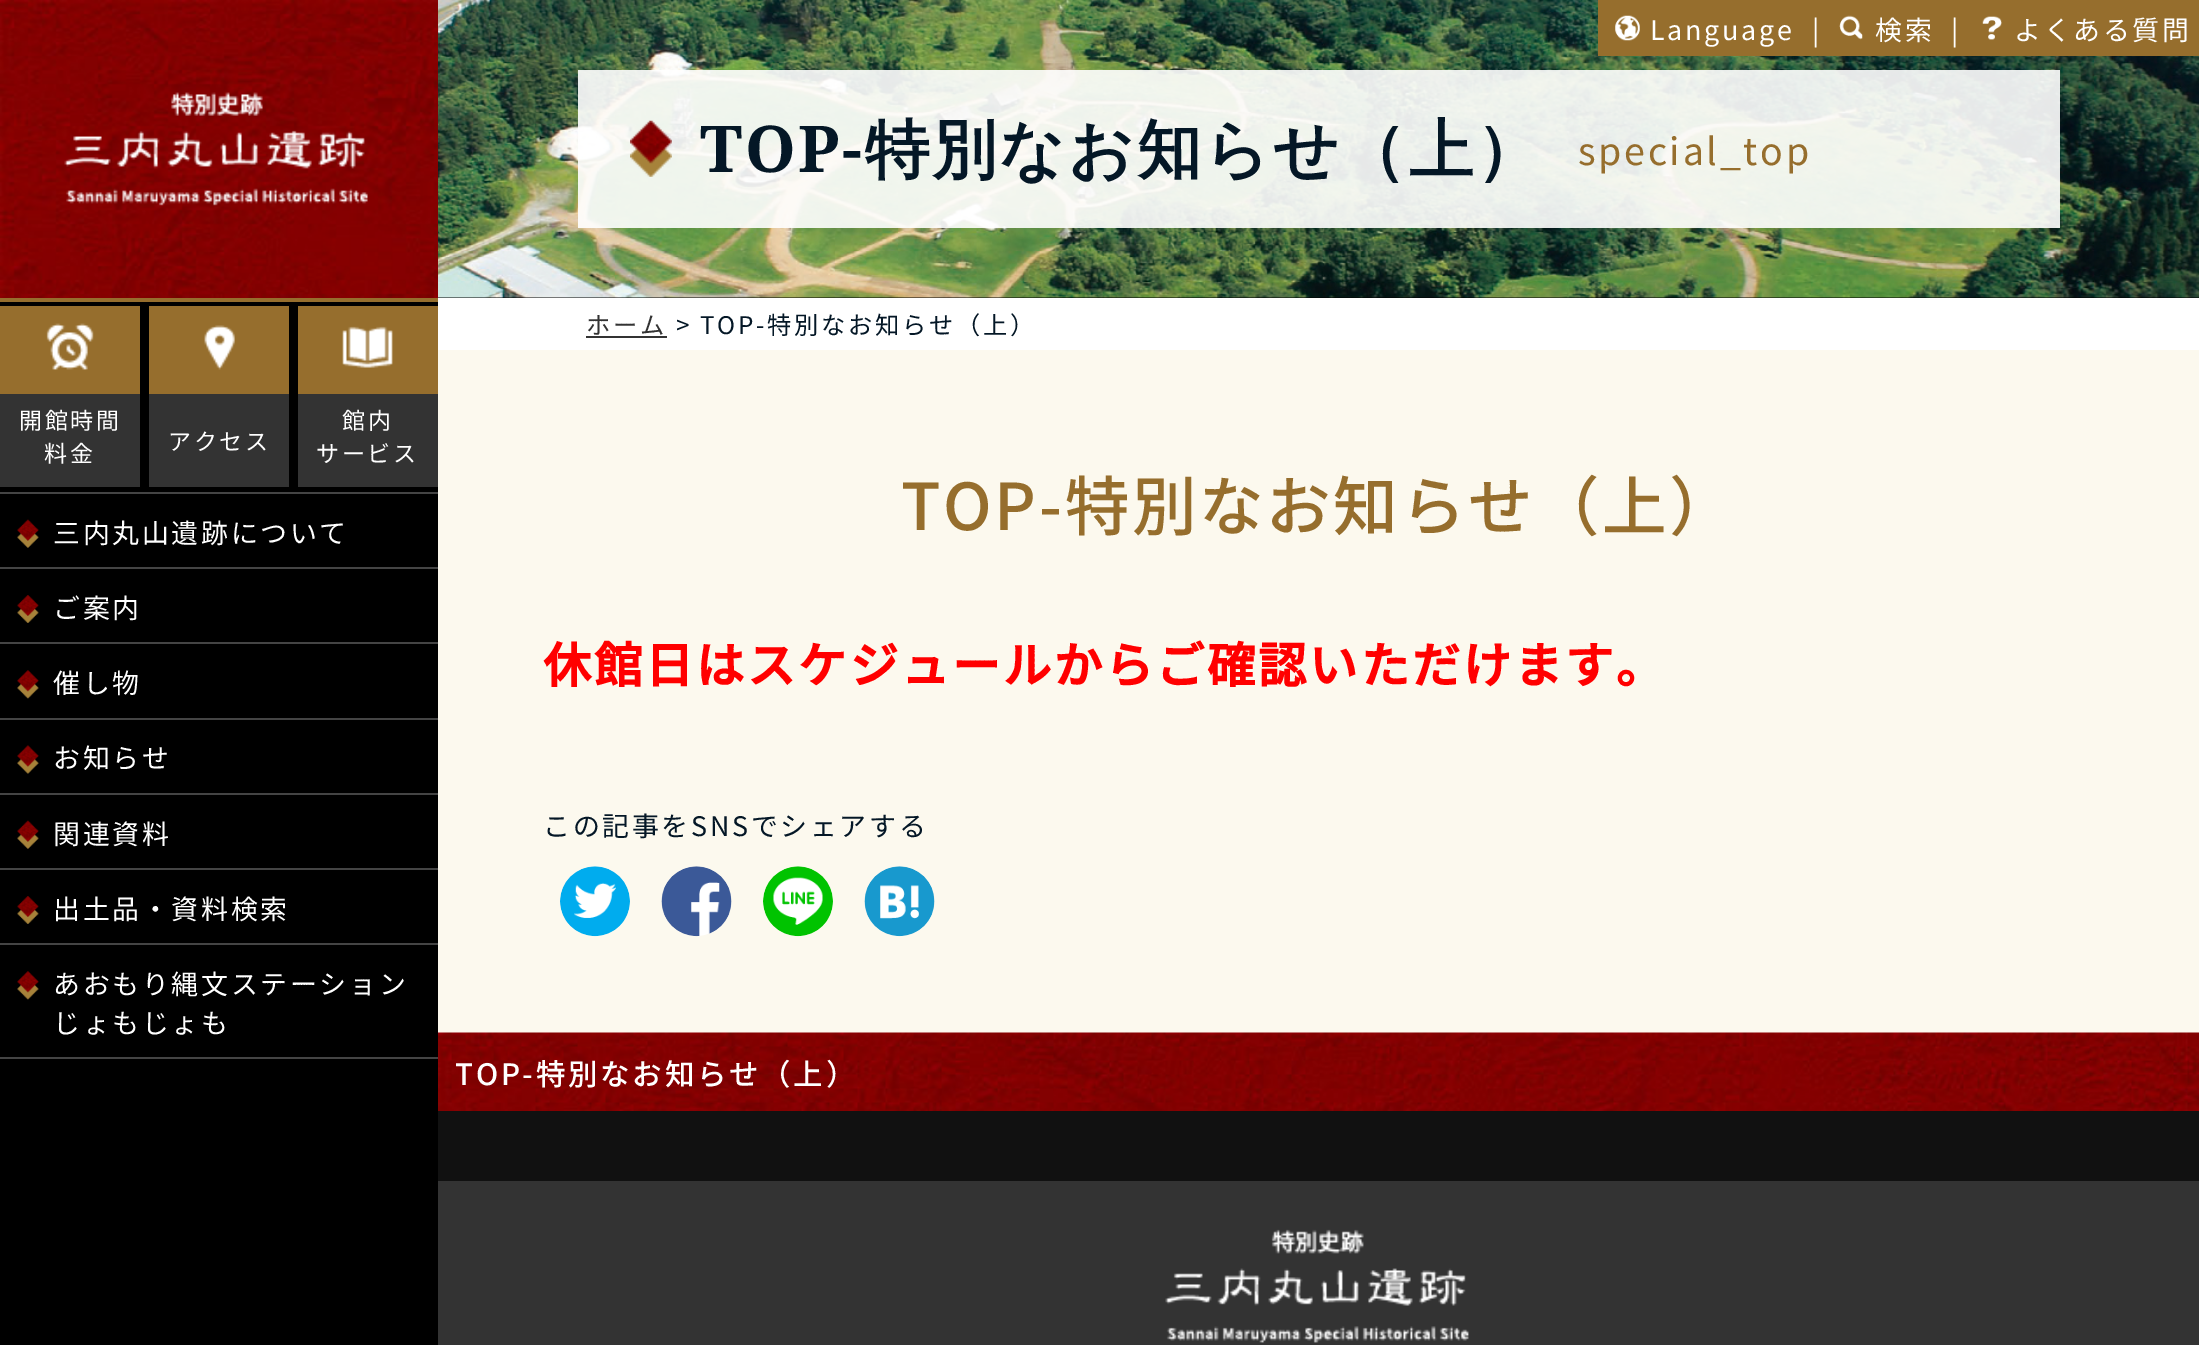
%!PS
<< /PageSize [2199 1345] /PageUsesTransparency true >> setpagedevice
/m/moveto load def
/C { dup -16 bitshift 255 div exch dup -8 bitshift 255 and 255 div exch 255 and 255 div setrgbcolor } def
/F { [ exch dup neg 0 0 3 -1 roll 0 0 ] selectfont } def
/R { rectfill } def
/A { dup .setfillconstantalpha .setstrokeconstantalpha } def
/I { 5 dict begin { /h /w /y /x /name } { exch def } forall
  gsave x y translate w h scale
  w h 8 [w 0 0 h 0 0] name (r) file false 3 colorimage grestore end } def
0 .pushpdf14devicefilter
0 1345 translate 1 -1 scale
4 setmiterlimit
16#FCF9EE C
0 0 2199 1345 R
(1.rgb) 0 0 438 298 I
(2.rgb) 64 92 304 114 I
16#000000 C
438 297 1761 1 R
(14.rgb) 438 0 1761 298 I
16#966E2D C
1598 0 601 56 R
(3.rgb) 1615 15 25 26 I
/NotoSansJP-Regular 26.9 F
16#FFFFFF C
1650 40 m 2.7 0 (Language) ashow
1812 40 m 2.7 0 (|) ashow
(4.rgb) 1839 15 24 25 I
1875 40 m 2.7 0 (検索) ashow
1951 40 m 2.7 0 (|) ashow
(5.rgb) 1982 16 20 24 I
2014 40 m 2.7 0 (よくある質問) ashow
16#000000 C
0 302 438 1043 R
16#966E2D C
0 298 438 4 R
16#444444 C
0 492 438 2 R
16#966E2D C
0 306 140 88 R
(6.rgb) 46 323 48 47 I
16#333333 C
0 394 140 93 R
/NotoSansJP-Regular 23 F
16#FFFFFF C
19 429 m 2.7 0 (開館時間) ashow
44 462 m 2.7 0 (料金) ashow
16#966E2D C
149 306 140 88 R
(7.rgb) 204 325 31 45 I
16#333333 C
149 394 140 93 R
16#FFFFFF C
168 450 m 2.7 0 (アクセス) ashow
16#966E2D C
298 306 140 88 R
(8.rgb) 342 326 51 42 I
16#333333 C
298 394 140 93 R
16#FFFFFF C
342 429 m 2.7 0 (館内) ashow
316 462 m 2.7 0 (サービス) ashow
(9.rgb) 17 519 22 29 I
16#444444 C
0 567 438 2 R
/NotoSansJP-Regular 26.9 F
16#FFFFFF C
53 543 m 2.7 0 (三内丸山遺跡について) ashow
(10.rgb) 17 595 22 28 I
16#444444 C
0 642 438 2 R
16#FFFFFF C
53 618 m 2.7 0 (ご案内) ashow
(11.rgb) 17 670 22 29 I
16#444444 C
0 718 438 2 R
16#FFFFFF C
53 693 m 2.7 0 (催し物) ashow
(12.rgb) 17 745 22 29 I
16#444444 C
0 793 438 2 R
16#FFFFFF C
53 768 m 2.7 0 (お知らせ) ashow
(9.rgb) 17 820 22 29 I
16#444444 C
0 868 438 2 R
16#FFFFFF C
53 844 m 2.7 0 (関連資料) ashow
(10.rgb) 17 896 22 28 I
16#444444 C
0 943 438 2 R
16#FFFFFF C
53 919 m 2.7 0 (出土品・資料検索) ashow
(13.rgb) 17 971 22 29 I
16#444444 C
0 1057 438 2 R
16#FFFFFF C
53 994 m 2.7 0 (あおもり縄文ステーション) ashow
53 1033 m 2.7 0 (じょもじょも) ashow
0.9 A
578 70 1482 158 R
1 A
(15.rgb) 630 120 42 57 I
/NotoSerif-Bold 64.5 F
16#041726 C
700 172 m 2.7 0 (TOP-) ashow
/WenQuanYiZenHei-Bold 64.5 F
865 172 m 2.7 0 (特別なお知らせ（上）) ashow
/NotoSansJP-Regular 37.5 F
16#966E2D C
1578 165 m 2.7 0 (special_top) ashow
16#FFFFFF C
438 298 1761 52 R
/NotoSansJP-Regular 24.25 F
16#333333 C
586 334 m 2.7 0 (ホーム) ashow
586 336 81 2 R
16#041726 C
676 334 m 2.7 0 (>) ashow
700 334 m 2.7 0 (TOP-特別なお知らせ（上）) ashow
/NotoSansJP-Medium 64.5 F
16#966E2D C
901 530 m 2.7 0 (TOP-特別なお知らせ（上）) ashow
/NotoSansJP-Bold 48.4 F
16#FF0000 C
543 683 m 2.7 0 (休館日はスケジュールからご確認いただけます。) ashow
/NotoSansJP-Regular 26.9 F
16#041726 C
543 836 m 2.7 0 (この記事をSNSでシェアする) ashow
(16.rgb) 560 866 70 71 I
(17.rgb) 661 866 71 71 I
(18.rgb) 763 866 70 71 I
(19.rgb) 864 866 71 71 I
(20.rgb) 438 1032 1761 79 I
/NotoSansJP-Medium 29.5 F
16#FFFFFF C
455 1085 m 2.7 0 (TOP-特別なお知らせ（上）) ashow
16#111111 C
438 1111 1761 70 R
16#333333 C
438 1181 1761 164 R
(21.rgb) 1165 1229 304 114 I
.poppdf14devicefilter showpage
